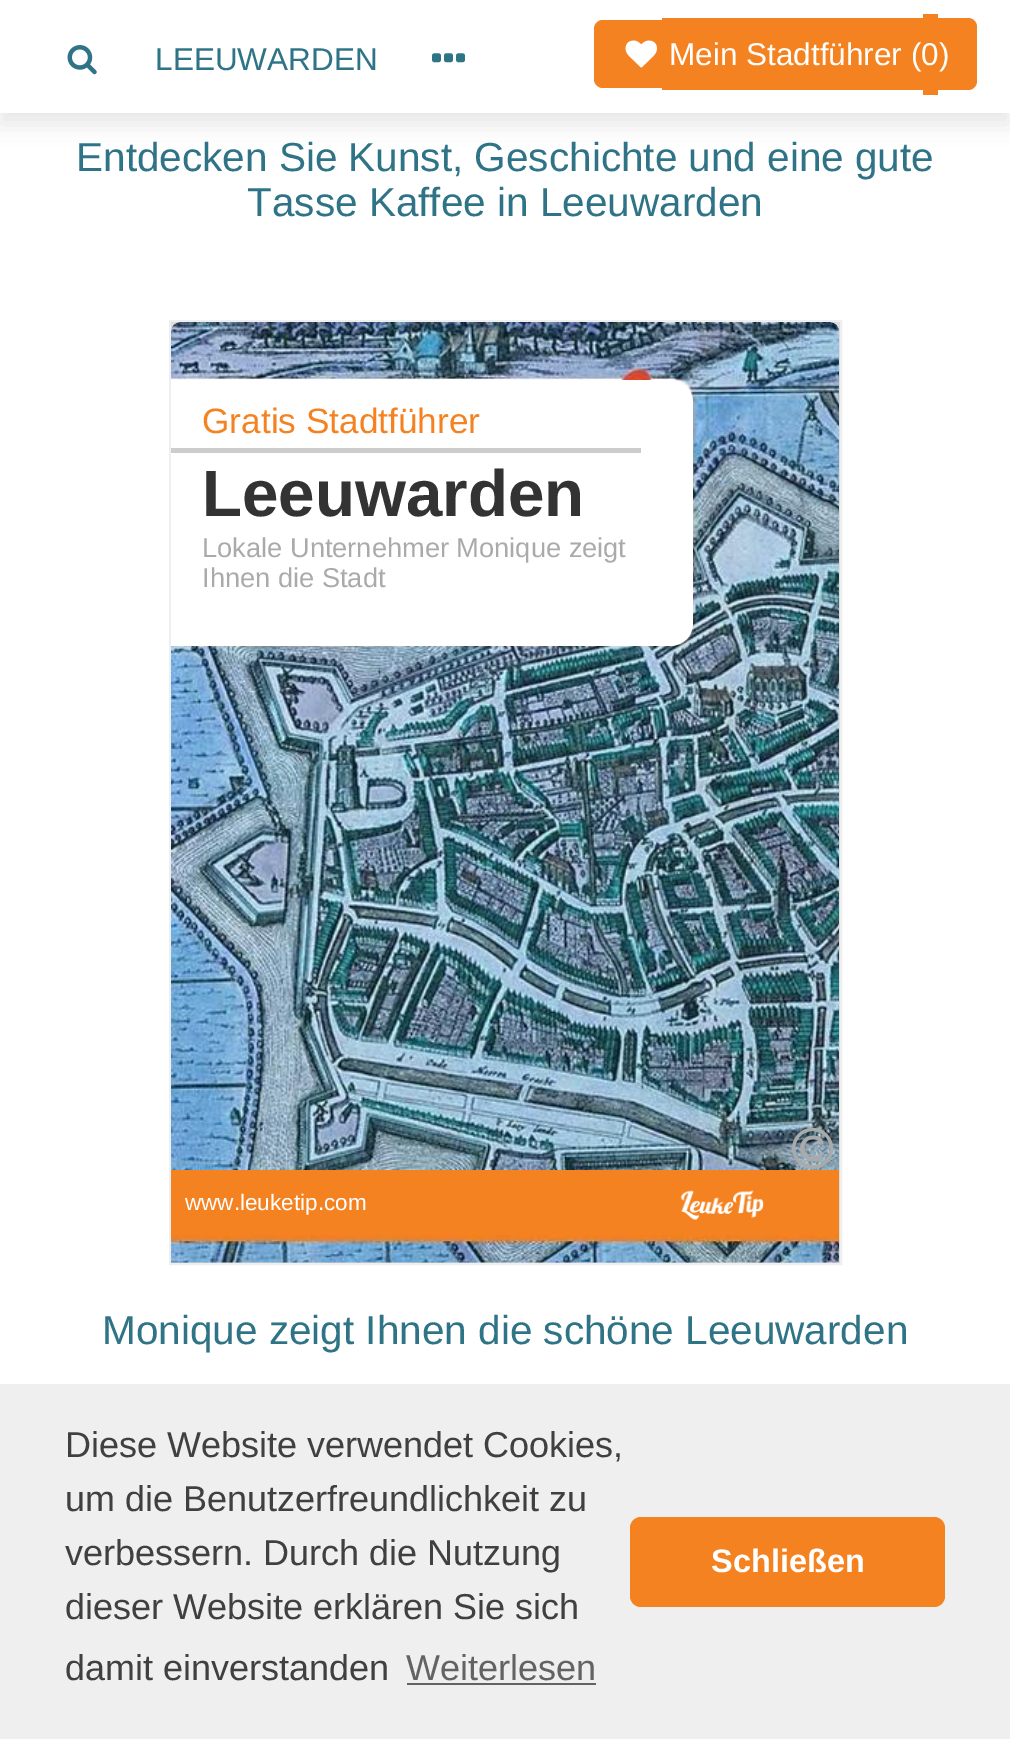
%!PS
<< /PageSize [1010 1739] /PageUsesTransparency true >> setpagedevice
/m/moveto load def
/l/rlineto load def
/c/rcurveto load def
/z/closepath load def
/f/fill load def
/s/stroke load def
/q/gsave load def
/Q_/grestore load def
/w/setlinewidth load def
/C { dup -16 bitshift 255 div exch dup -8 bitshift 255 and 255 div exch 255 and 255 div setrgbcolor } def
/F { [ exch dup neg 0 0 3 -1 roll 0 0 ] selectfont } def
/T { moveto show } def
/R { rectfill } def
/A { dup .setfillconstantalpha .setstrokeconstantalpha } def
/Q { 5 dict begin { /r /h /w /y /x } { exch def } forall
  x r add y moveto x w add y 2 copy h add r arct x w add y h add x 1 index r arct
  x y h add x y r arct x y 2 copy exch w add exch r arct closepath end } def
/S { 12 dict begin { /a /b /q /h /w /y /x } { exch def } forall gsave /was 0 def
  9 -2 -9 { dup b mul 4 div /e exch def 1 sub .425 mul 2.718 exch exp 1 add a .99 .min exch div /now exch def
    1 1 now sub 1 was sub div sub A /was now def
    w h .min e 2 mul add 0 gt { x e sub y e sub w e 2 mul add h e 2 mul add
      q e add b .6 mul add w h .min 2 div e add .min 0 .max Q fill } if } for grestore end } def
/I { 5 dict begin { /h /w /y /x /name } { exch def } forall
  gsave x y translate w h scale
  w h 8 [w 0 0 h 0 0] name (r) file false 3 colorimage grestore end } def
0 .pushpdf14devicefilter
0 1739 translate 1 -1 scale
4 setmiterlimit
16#FFFFFF C
0 0 1010 1739 R
16#000000 C
0 11 1010 113 0 11 .1 S
16#FFFFFF C
0 0 1010 113 R
(1.rgb) 67 45 30 30 I
/LiberationSans-Regular 31.5 F
16#2F7386 C
(LEEUWARDEN) 155 70 T
(2.rgb) 432 53 33 10 I
16#F58220 C
603 20 m 59 0 l 0 68 l -59 0 l -5 0 -9 -4 -9 -9 c 0 -50 l 0 -5 4 -9 9 -9 c z f
662 18 261 72 R
923 14 15 81 R
938 18 m 30 0 l 5 0 9 4 9 9 c 0 54 l 0 5 -4 9 -9 9 c -30 0 l z f
(3.rgb) 625 40 32 28 I
16#FFFFFF C
(Mein Stadtführer \(0\)) 669 65 T
/LiberationSans-Regular 40.5 F
16#2F7386 C
(Entdecken Sie Kunst, Geschichte und eine gute) 76 171 T
(Tasse Kaffee in Leeuwarden) 247 216 T
16#DDDDDD C
170 321 m 671 0 l 0 943 l -671 0 l z q f Q_
16#EFEFEF C
2 w
s
(4.rgb) 171 322 668 941 I
16#FFFFFF C
171 380 m 499 0 l 12.5 0 23 10.5 23 23 c 0 220 l 0 12.5 -10.5 23 -23 23 c -499 0 l z f
16#CCCCCC C
171 448 470 5 R
/LiberationSans-Regular 35.25 F
16#F58220 C
(Gratis Stadtführer) 202 433 T
/LiberationSans-Bold 65.5 F
16#333333 C
(Leeuwarden) 202 516 T
/LiberationSans-Regular 27.25 F
16#AAAAAA C
(Lokale Unternehmer Monique zeigt) 202 557 T
(Ihnen die Stadt) 202 587 T
16#F58220 C
171 1170 668 65 R
/LiberationSans-Regular 22.5 F
16#FFFFFF C
(www.leuketip.com) 185 1210 T
(5.rgb) 680 1190 84 30 I
(6.rgb) 792 1127 42 42 I
/LiberationSans-Regular 40.5 F
16#2F7386 C
(Monique zeigt Ihnen die schöne Leeuwarden) 102 1344 T
16#EFEFEF C
0 1384 1010 355 R
/LiberationSans-Regular 36 F
16#404040 C
(Diese Website verwendet Cookies,) 65 1457 T
(um die Benutzerfreundlichkeit zu) 65 1511 T
(verbessern. Durch die Nutzung) 65 1565 T
(dieser Website erklären Sie sich) 65 1619 T
(damit einverstanden) 65 1680 T
16#636363 C
(Weiterlesen) 406 1680 T
407 1683 189 2 R
16#F58220 C
630 1517 315 90 11 Q f
/LiberationSans-Bold 32.5 F
16#FFFFFF C
(Schließen) 711 1572 T
.poppdf14devicefilter showpage
